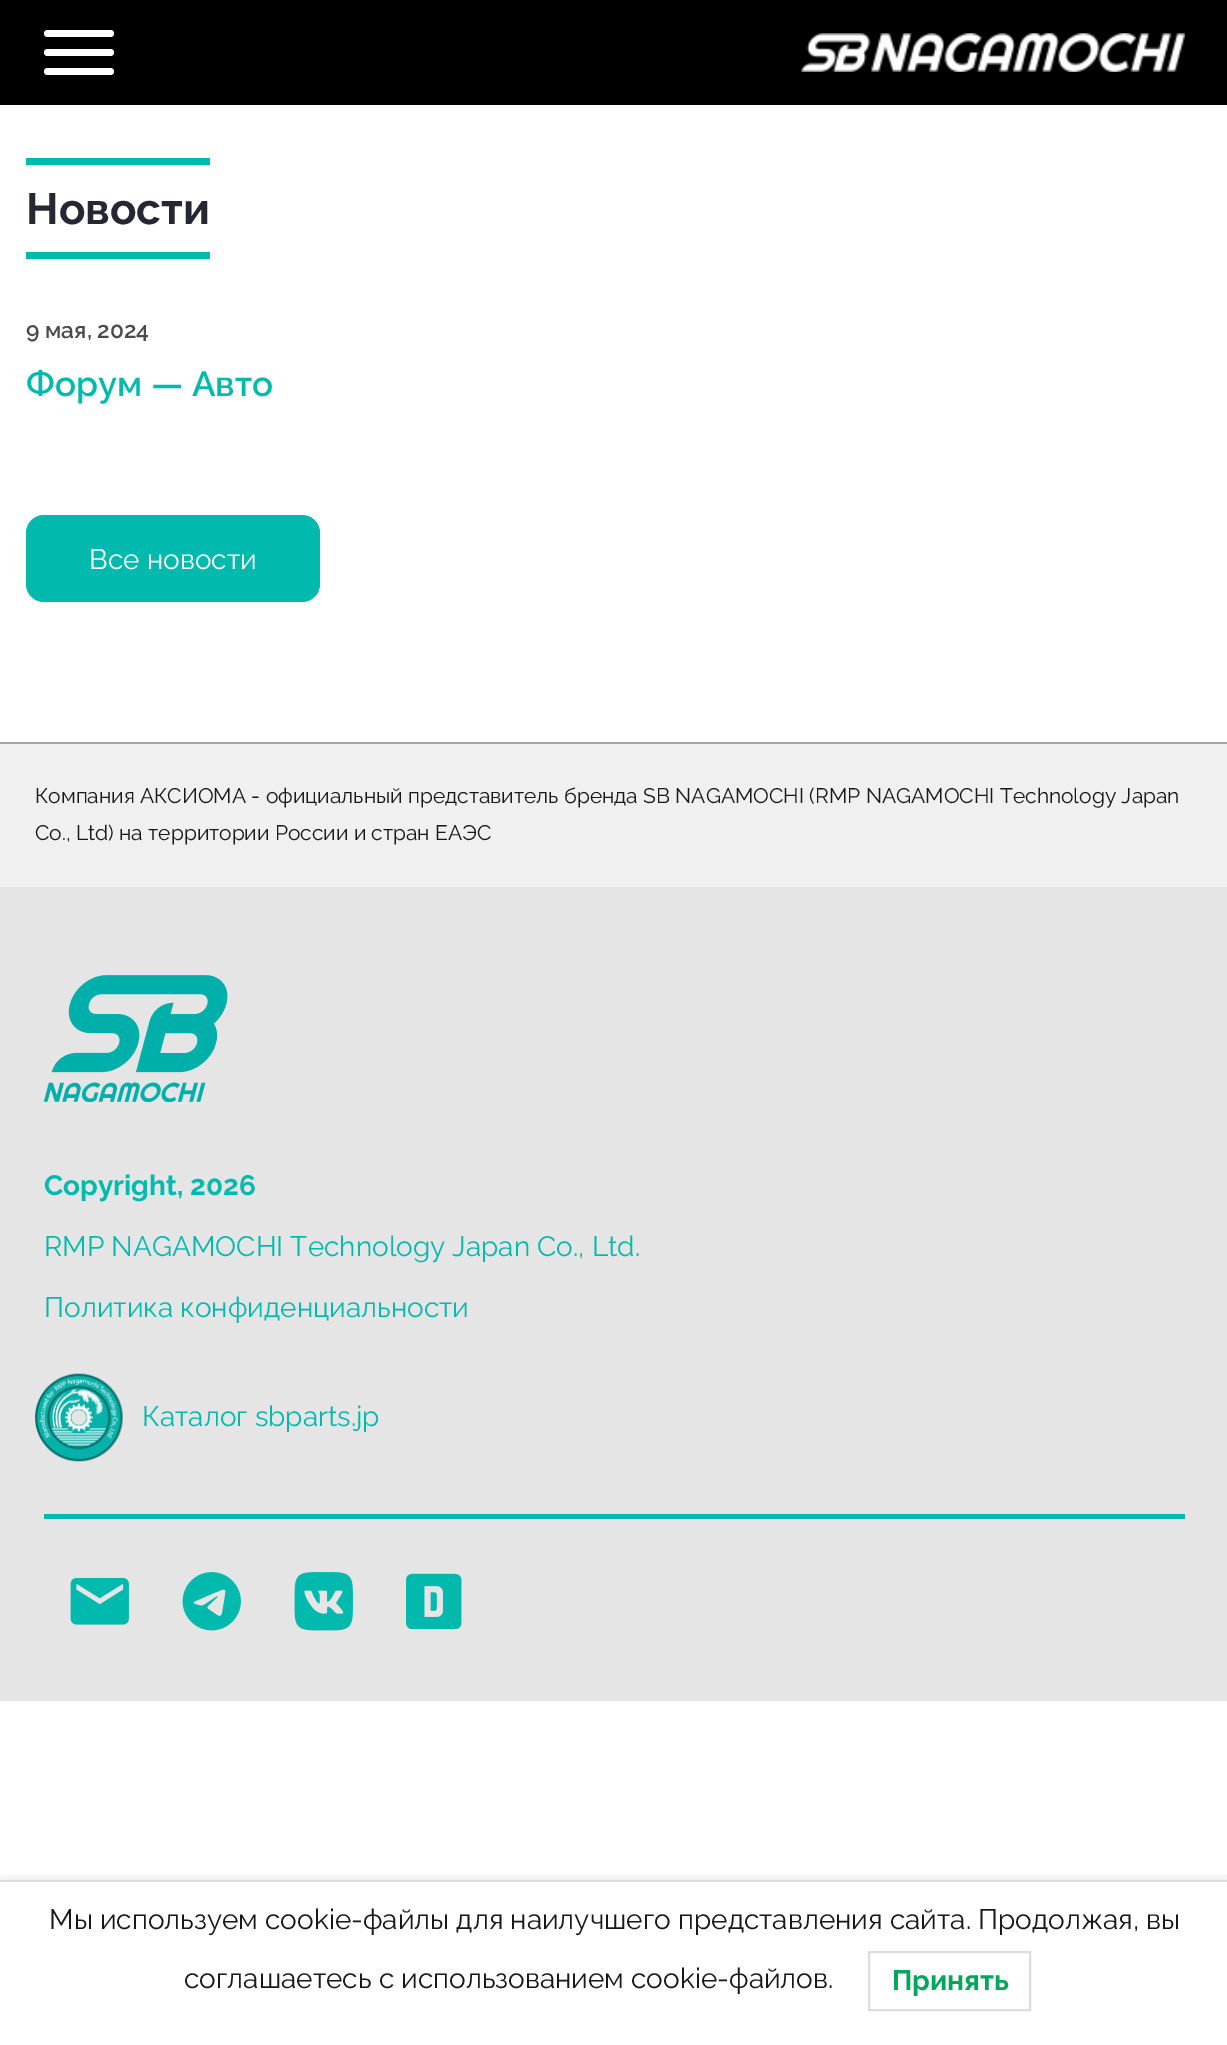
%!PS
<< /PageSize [1227 2045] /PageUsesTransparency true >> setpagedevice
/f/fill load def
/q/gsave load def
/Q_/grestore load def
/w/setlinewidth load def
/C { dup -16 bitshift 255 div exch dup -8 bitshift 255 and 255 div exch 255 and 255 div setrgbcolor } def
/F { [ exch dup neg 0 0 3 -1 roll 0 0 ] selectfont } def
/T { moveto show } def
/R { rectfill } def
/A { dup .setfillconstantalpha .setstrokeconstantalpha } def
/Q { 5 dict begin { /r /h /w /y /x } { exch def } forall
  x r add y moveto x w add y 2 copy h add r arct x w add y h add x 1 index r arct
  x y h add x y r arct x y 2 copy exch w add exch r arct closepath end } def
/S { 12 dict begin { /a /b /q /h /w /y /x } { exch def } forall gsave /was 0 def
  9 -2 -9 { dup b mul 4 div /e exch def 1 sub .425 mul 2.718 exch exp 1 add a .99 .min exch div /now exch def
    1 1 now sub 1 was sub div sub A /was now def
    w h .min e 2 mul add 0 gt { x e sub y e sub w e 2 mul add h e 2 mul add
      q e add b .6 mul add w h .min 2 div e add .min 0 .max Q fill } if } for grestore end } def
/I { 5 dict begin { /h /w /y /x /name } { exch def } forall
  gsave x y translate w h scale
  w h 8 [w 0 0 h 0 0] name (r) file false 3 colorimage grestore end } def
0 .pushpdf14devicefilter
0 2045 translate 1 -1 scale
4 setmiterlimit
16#FFFFFF C
0 0 1227 2045 R
16#000000 C
0 0 1227 105 R
16#FFFFFF C
44 30 70 7 3.5 Q f
44 49 70 7 3.5 Q f
44 68 70 7 3.5 Q f
(1.rgb) 801 33 384 39 I
16#02B9AD C
26 158 184 7 R
26 252 184 7 R
/Raleway-Bold 43.75 F
16#252732 C
(Новости) 26 224 T
/Raleway-SemiBold 22.75 F
16#4A4A4A C
(9 мая, 2024) 26 338 T
/Raleway-SemiBold 35 F
16#02B9AD C
(Форум — Авто) 26 396 T
26 515 294 87 18 Q f
/Raleway-Regular 28 F
16#FFFFFF C
(Все новости) 89 569 T
16#F0F0F0 C
0 744 1227 143 R
16#A4A4A4 C
0 742 1227 2 R
/Raleway-Regular 21 F
16#181818 C
(Компания АКСИОМА - официальный представитель бренда SB NAGAMOCHI \(RMP NAGAMOCHI Technology Japan) 35 803 T
(Co., Ltd\) на территории России и стран ЕАЭС) 35 840 T
16#E5E5E5 C
0 887 1227 814 R
(2.rgb) 44 975 184 127 I
16#02B9AD C
44 1514 1141 5 R
/Raleway-Bold 28 F
(Copyright, 2026) 44 1195 T
/Raleway-Regular 28 F
(RMP NAGAMOCHI Technology Japan Co., Ltd.) 44 1256 T
(Политика конфиденциальности) 44 1317 T
(3.rgb) 35 1373 88 89 I
(Каталог sbparts.jp) 142 1426 T
(4.rgb) 70 1577 59 48 I
(5.rgb) 182 1572 59 59 I
(6.rgb) 294 1572 59 59 I
(7.rgb) 406 1573 56 56 I
q
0 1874 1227 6 rectclip
16#000000 C
0 1880 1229 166 0 7 .1 S
Q_
16#DDDDDD C
0 1880 1227 2 R
16#181818 C
(Мы используем cookie-файлы для наилучшего представления сайта. Продолжая, вы) 49 1929 T
(соглашаетесь с использованием cookie-файлов.) 184 1988 T
16#DDDDDD C
2 w
869 1952 161 58 rectstroke
/Raleway-Bold 28 F
16#00A65A C
(Принять) 892 1990 T
.poppdf14devicefilter showpage
